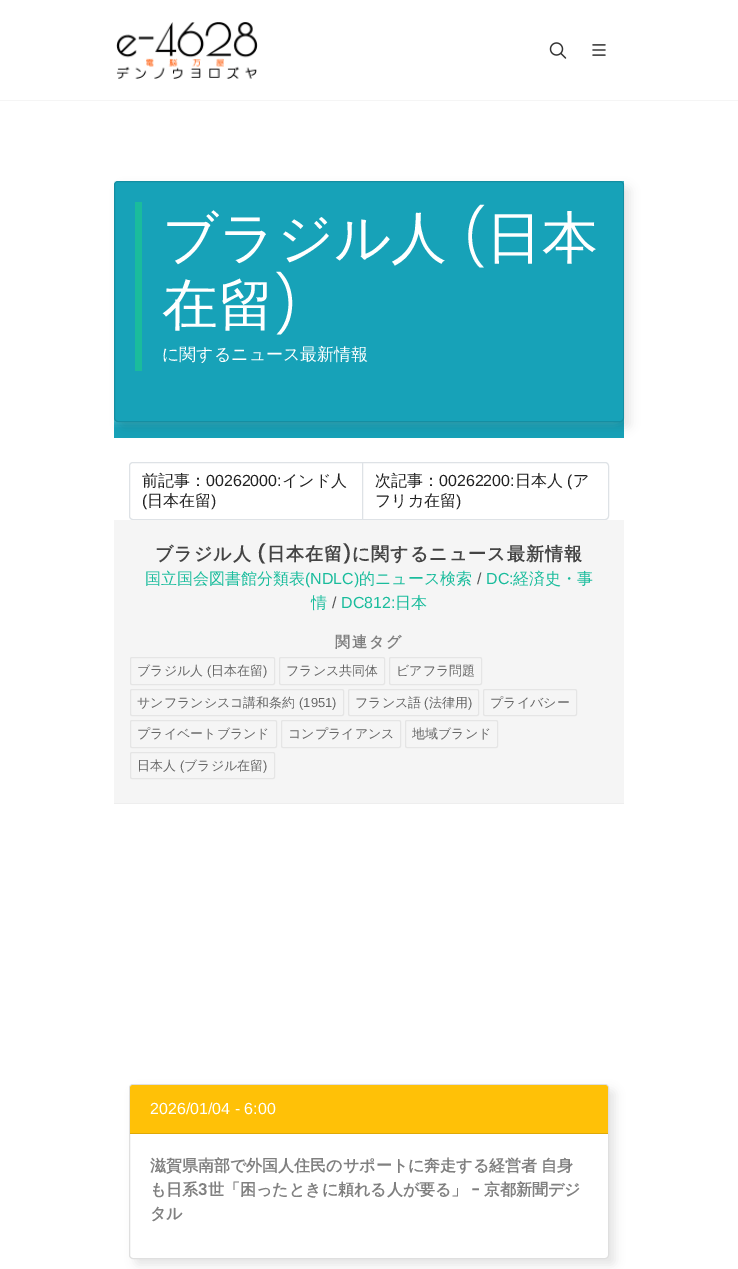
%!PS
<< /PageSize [738 1269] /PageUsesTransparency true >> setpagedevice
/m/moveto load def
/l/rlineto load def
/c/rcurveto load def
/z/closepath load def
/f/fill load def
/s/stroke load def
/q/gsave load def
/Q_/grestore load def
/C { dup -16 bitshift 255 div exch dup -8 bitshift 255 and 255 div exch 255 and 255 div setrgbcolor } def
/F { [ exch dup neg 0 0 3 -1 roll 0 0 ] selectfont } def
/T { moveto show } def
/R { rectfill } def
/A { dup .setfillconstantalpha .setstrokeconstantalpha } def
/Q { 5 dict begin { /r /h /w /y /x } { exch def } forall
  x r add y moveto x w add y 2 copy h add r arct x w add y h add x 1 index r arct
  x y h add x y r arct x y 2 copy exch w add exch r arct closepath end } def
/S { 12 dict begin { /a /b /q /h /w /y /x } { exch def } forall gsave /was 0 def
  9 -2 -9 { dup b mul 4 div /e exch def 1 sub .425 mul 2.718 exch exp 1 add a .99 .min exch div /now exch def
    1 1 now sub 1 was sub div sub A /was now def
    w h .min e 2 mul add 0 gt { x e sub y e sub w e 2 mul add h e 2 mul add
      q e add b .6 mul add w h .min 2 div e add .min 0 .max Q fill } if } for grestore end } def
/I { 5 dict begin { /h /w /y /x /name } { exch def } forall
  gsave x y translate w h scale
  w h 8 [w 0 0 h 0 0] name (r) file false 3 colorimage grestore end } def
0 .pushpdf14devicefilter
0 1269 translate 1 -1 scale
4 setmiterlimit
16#FFFFFF C
0 0 738 1269 R
16#F5F5F5 C
0 100 738 1 R
(1.rgb) 116 22 142 57 I
(2.rgb) 549 42 18 17 I
(3.rgb) 592 44 14 12 I
16#17A2B8 C
114 181 510 257 R
16#FFFFFF C
108 175 510 241 4 5 1 S
16#000000 C
120 187 510 241 4 5 .1 S
16#17A2B8 C
114 181 510 241 4 Q f
0.12 A
16#000000 C
114.5 181.5 509 240 3.5 Q s
1 A
16#1ABC9C C
135 202 7 169 R
/WenQuanYiZenHei-Medium 56 F
16#FFFFFF C
(ブラジル人) 162 257 T
/Poppins-Light 56 F
(\() 463 257 T
/WenQuanYiZenHei-Medium 56 F
(日本) 486 257 T
(在留) 162 324 T
/Poppins-Light 56 F
(\)) 274 324 T
/WenQuanYiZenHei-Medium 17 F
(に関するニュース最新情報) 162 360 T
16#DEE2E6 C
133 462.5 m 229.5 0 l 0 57 l -229.5 0 l -2 0 -3.5 -1.5 -3.5 -3.5 c 0 -50 l 0 -2 1.5 -3.5 3.5 -3.5 c z s
/WenQuanYiZenHei-Medium 16 F
16#222222 C
(前記事：) 142 486 T
/LiberationSans-Regular 16 F
(00262000:) 206 486 T
/WenQuanYiZenHei-Medium 16 F
(インド人) 282 486 T
/LiberationSans-Regular 16 F
(\() 142 506 T
/WenQuanYiZenHei-Medium 16 F
(日本在留) 147 506 T
/LiberationSans-Regular 16 F
(\)) 211 506 T
16#FFFFFF C
362.5 462.5 m 242.5 0 l 2 0 3.5 1.5 3.5 3.5 c 0 50 l 0 2 -1.5 3.5 -3.5 3.5 c -242.5 0 l z q f Q_
16#DEE2E6 C
s
/WenQuanYiZenHei-Medium 16 F
16#222222 C
(次記事：) 375 486 T
/LiberationSans-Regular 16 F
(00262200:) 439 486 T
/WenQuanYiZenHei-Medium 16 F
(日本人) 515 486 T
/LiberationSans-Regular 16 F
(\() 567 486 T
/WenQuanYiZenHei-Medium 16 F
(ア) 573 486 T
(フリカ在留) 375 506 T
/LiberationSans-Regular 16 F
(\)) 456 506 T
16#F5F5F5 C
114 520 510 283 R
16#EEEEEE C
114 803 510 1 R
/WenQuanYiZenHei-Bold 18 F
16#444444 C
155 560 m 1 0 (ブラジル人) ashow
/Poppins-SemiBold 18 F
257 560 m 1 0 (\() ashow
/WenQuanYiZenHei-Bold 18 F
267 560 m 1 0 (日本在留) ashow
/Poppins-SemiBold 18 F
343 560 m 1 0 (\)) ashow
/WenQuanYiZenHei-Bold 18 F
352 560 m 1 0 (に関するニュース最新情報) ashow
/WenQuanYiZenHei-Medium 16 F
16#1ABC9C C
(国立国会図書館分類表) 145 584 T
/LiberationSans-Regular 16 F
(\(NDLC\)) 305 584 T
/WenQuanYiZenHei-Medium 16 F
(的ニュース検索) 359 584 T
/LiberationSans-Regular 16 F
16#555555 C
(/) 477 584 T
16#1ABC9C C
(DC:) 486 584 T
/WenQuanYiZenHei-Medium 16 F
(経済史・事) 513 584 T
(情) 311 608 T
/LiberationSans-Regular 16 F
16#555555 C
(/) 332 608 T
16#1ABC9C C
(DC812:) 341 608 T
/WenQuanYiZenHei-Medium 16 F
(日本) 395 608 T
/WenQuanYiZenHei-Bold 15 F
16#808080 C
335 647 m 2 0 (関連タグ) ashow
16#E5E5E5 C
130.5 657.5 144 27 1.5 Q s
/WenQuanYiZenHei-Medium 13 F
16#666666 C
(ブラジル人) 137 675 T
/LiberationSans-Regular 13 F
(\() 207 675 T
/WenQuanYiZenHei-Medium 13 F
(日本在留) 211 675 T
/LiberationSans-Regular 13 F
(\)) 263 675 T
16#E5E5E5 C
279.5 657.5 105 27 1.5 Q s
/WenQuanYiZenHei-Medium 13 F
16#666666 C
(フランス共同体) 286 675 T
16#E5E5E5 C
389.5 657.5 92 27 1.5 Q s
16#666666 C
(ビアフラ問題) 396 675 T
16#E5E5E5 C
130.5 689.5 213 26 1.5 Q s
16#666666 C
(サンフランシスコ講和条約) 137 707 T
/LiberationSans-Regular 13 F
(\(1951\)) 299 707 T
16#E5E5E5 C
348.5 689.5 130 26 1.5 Q s
/WenQuanYiZenHei-Medium 13 F
16#666666 C
(フランス語) 355 707 T
/LiberationSans-Regular 13 F
(\() 424 707 T
/WenQuanYiZenHei-Medium 13 F
(法律用) 429 707 T
/LiberationSans-Regular 13 F
(\)) 468 707 T
16#E5E5E5 C
483.5 689.5 93 26 1.5 Q s
/WenQuanYiZenHei-Medium 13 F
16#666666 C
(プライバシー) 490 707 T
16#E5E5E5 C
130.5 720.5 146 27 1.5 Q s
16#666666 C
(プライベートブランド) 137 738 T
16#E5E5E5 C
281.5 720.5 119 27 1.5 Q s
16#666666 C
(コンプライアンス) 288 738 T
16#E5E5E5 C
405.5 720.5 92 27 1.5 Q s
16#666666 C
(地域ブランド) 412 738 T
16#E5E5E5 C
130.5 752.5 144 26 1.5 Q s
16#666666 C
(日本人) 137 770 T
/LiberationSans-Regular 13 F
(\() 180 770 T
/WenQuanYiZenHei-Medium 13 F
(ブラジル在留) 184 770 T
/LiberationSans-Regular 13 F
(\)) 263 770 T
16#000000 C
135 1090 480 175 4 5 .1 S
16#FFFFFF C
129.5 1084.5 479 174 3.5 Q q f Q_
16#DFDFDF C
s
16#FFC107 C
133 1085 m 472 0 l 1.5 0 3 1.5 3 3 c 0 46 l -478 0 l 0 -46 l 0 -1.5 1.5 -3 3 -3 c z f
16#DFA906 C
130 1133 478 1 R
/LiberationSans-Regular 16 F
16#FFFFFF C
(2026/01/04 - 6:00) 150 1114 T
/WenQuanYiZenHei-Bold 16 F
16#808080 C
150 1171 m -1 0 32 (滋賀県南部で外国人住民のサポートに奔走する経営者 自身) widthshow
(も日系) 150 1195 T
/Poppins-SemiBold 16 F
(3) 198 1195 T
/WenQuanYiZenHei-Bold 16 F
(世「困ったときに頼れる人が要る」) 208 1195 T
/Poppins-SemiBold 16 F
(-) 471 1195 T
/WenQuanYiZenHei-Bold 16 F
(京都新聞デジ) 484 1195 T
(タル) 150 1219 T
.poppdf14devicefilter showpage
